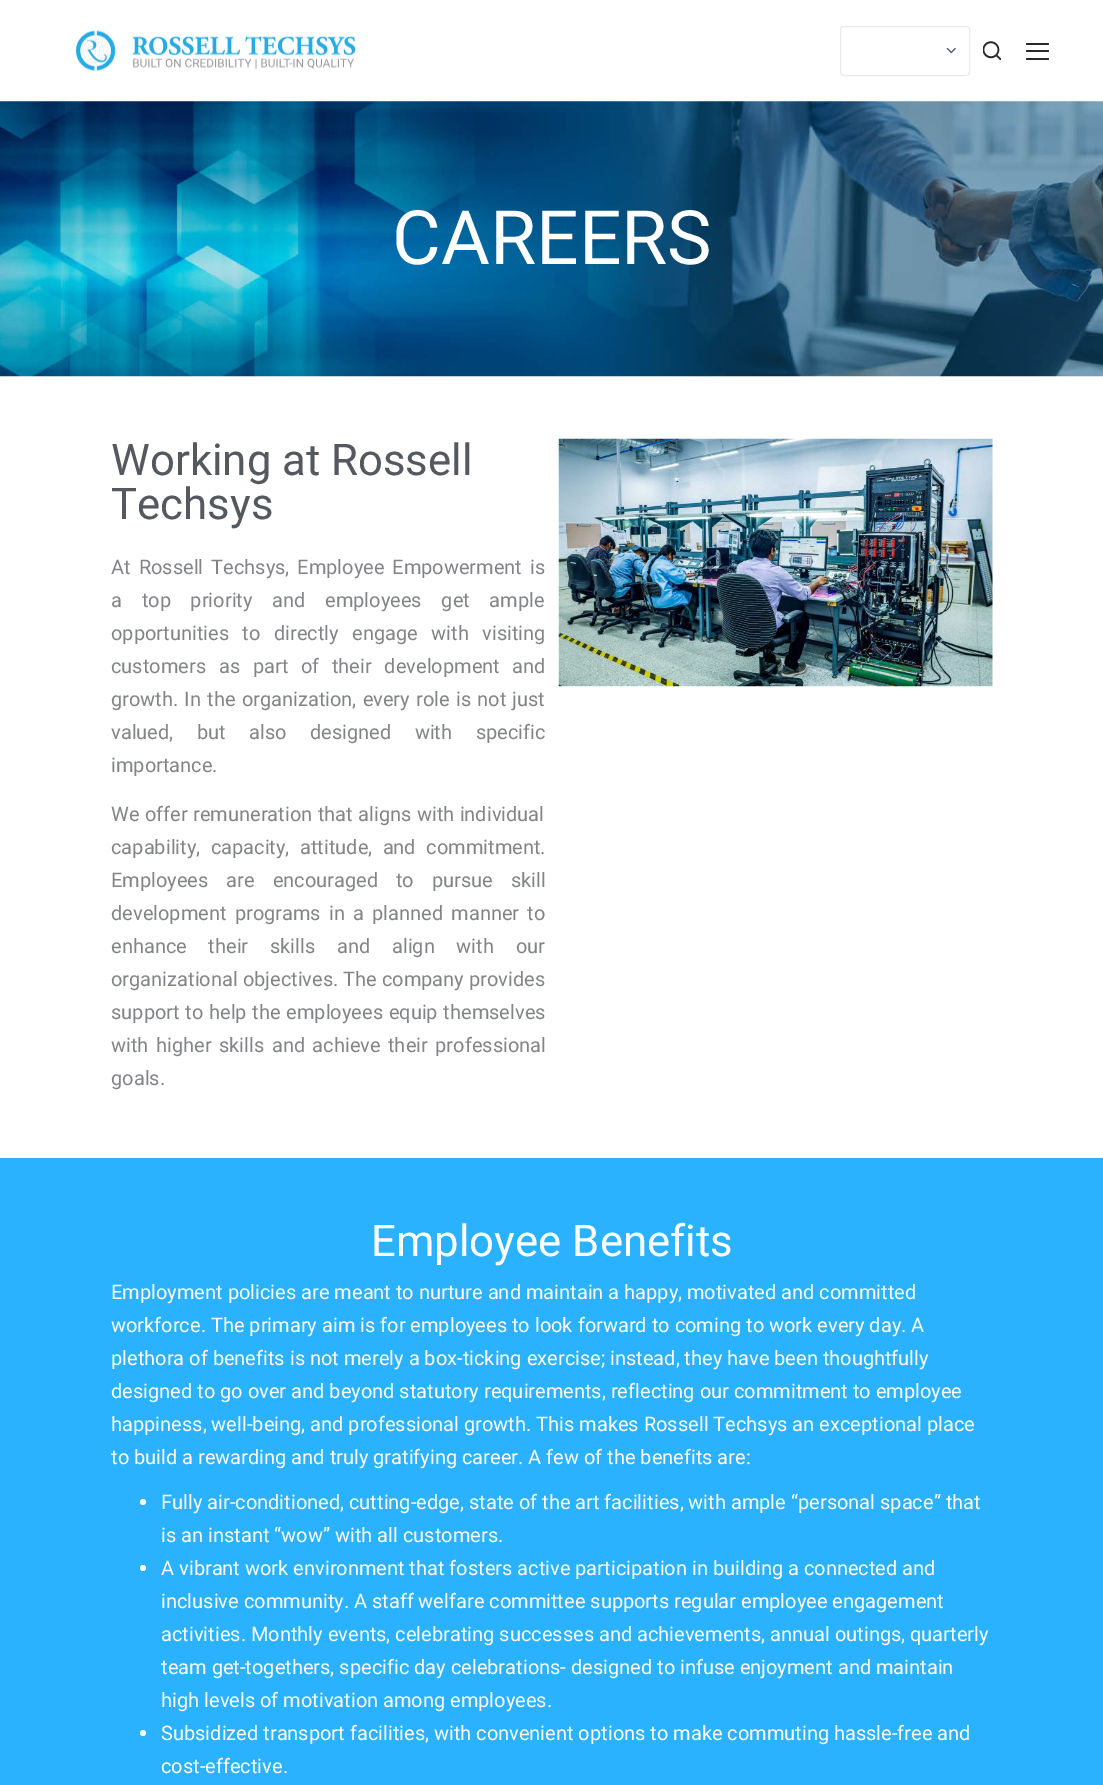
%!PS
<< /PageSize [1103 1785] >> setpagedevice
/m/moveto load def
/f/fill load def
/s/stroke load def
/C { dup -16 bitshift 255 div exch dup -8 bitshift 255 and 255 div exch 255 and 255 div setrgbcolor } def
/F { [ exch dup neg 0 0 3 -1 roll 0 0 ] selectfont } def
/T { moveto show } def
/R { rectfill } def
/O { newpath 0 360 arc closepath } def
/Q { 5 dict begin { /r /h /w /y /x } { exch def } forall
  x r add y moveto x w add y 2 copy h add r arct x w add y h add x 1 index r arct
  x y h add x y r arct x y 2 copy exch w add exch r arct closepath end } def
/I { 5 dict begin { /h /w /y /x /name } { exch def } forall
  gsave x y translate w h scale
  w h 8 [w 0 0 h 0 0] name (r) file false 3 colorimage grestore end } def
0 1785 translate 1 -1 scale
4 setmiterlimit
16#FFFFFF C
0 0 1103 1785 R
(1.rgb) 76 30 280 41 I
(2.rgb) 946 48 10 6 I
16#E8EBED C
840.5 26.5 129 49 3.5 Q s
(3.rgb) 983 41 18 19 I
16#28292A C
1026 43 23 2 1 Q f
1026 50 23 2 1 Q f
1026 58 23 2 1 Q f
(4.rgb) 0 101 1103 276 I
/Roboto-Regular 75 F
16#FFFFFF C
(CAREERS) 392 264 T
/Roboto-Regular 43.75 F
16#54595F C
(Working at Rossell) 111 475 T
(Techsys) 111 519 T
/Roboto-Regular 20 F
16#828487 C
111 574 m 3 0 32 (At Rossell Techsys, Employee Empowerment is) widthshow
111 607 m 14.75 0 32 (a top priority and employees get ample) widthshow
111 640 m 8.5 0 32 (opportunities to directly engage with visiting) widthshow
111 673 m 7.75 0 32 (customers as part of their development and) widthshow
111 706 m 1.25 0 32 (growth. In the organization, every role is not just) widthshow
111 739 m 18.5 0 32 (valued, but also designed with specific) widthshow
(importance.) 111 772 T
111 821 m .5 0 32 (We offer remuneration that aligns with individual) widthshow
111 854 m 5.5 0 32 (capability, capacity, attitude, and commitment.) widthshow
111 887 m 13 0 32 (Employees are encouraged to pursue skill) widthshow
111 920 m 3.25 0 32 (development programs in a planned manner to) widthshow
111 953 m 16.75 0 32 (enhance their skills and align with our) widthshow
(organizational objectives. The company provides) 111 986 T
111 1019 m .75 0 32 (support to help the employees equip themselves) widthshow
111 1052 m 2.5 0 32 (with higher skills and achieve their professional) widthshow
(goals.) 111 1085 T
(5.rgb) 558 438 435 249 I
16#2BB2FF C
0 1158 1103 627 R
/Roboto-Regular 43.75 F
16#FFFFFF C
(Employee Benefits) 371 1256 T
/Roboto-Regular 20 F
(Employment policies are meant to nurture and maintain a happy, motivated and committed) 111 1299 T
(workforce. The primary aim is for employees to look forward to coming to work every day. A) 111 1332 T
(plethora of benefits is not merely a box-ticking exercise; instead, they have been thoughtfully) 111 1365 T
(designed to go over and beyond statutory requirements, reflecting our commitment to employee) 111 1398 T
(happiness, well-being, and professional growth. This makes Rossell Techsys an exceptional place) 111 1431 T
(to build a rewarding and truly gratifying career. A few of the benefits are:) 111 1464 T
143 1502 3 O f
(Fully air-conditioned, cutting-edge, state of the art facilities, with ample “personal space” that) 161 1509 T
(is an instant “wow” with all customers.) 161 1542 T
143 1568 3 O f
(A vibrant work environment that fosters active participation in building a connected and) 161 1575 T
(inclusive community. A staff welfare committee supports regular employee engagement) 161 1608 T
(activities. Monthly events, celebrating successes and achievements, annual outings, quarterly) 161 1641 T
(team get-togethers, specific day celebrations- designed to infuse enjoyment and maintain) 161 1674 T
(high levels of motivation among employees.) 161 1707 T
143 1733 3 O f
(Subsidized transport facilities, with convenient options to make commuting hassle-free and) 161 1740 T
(cost-effective.) 161 1773 T
showpage
